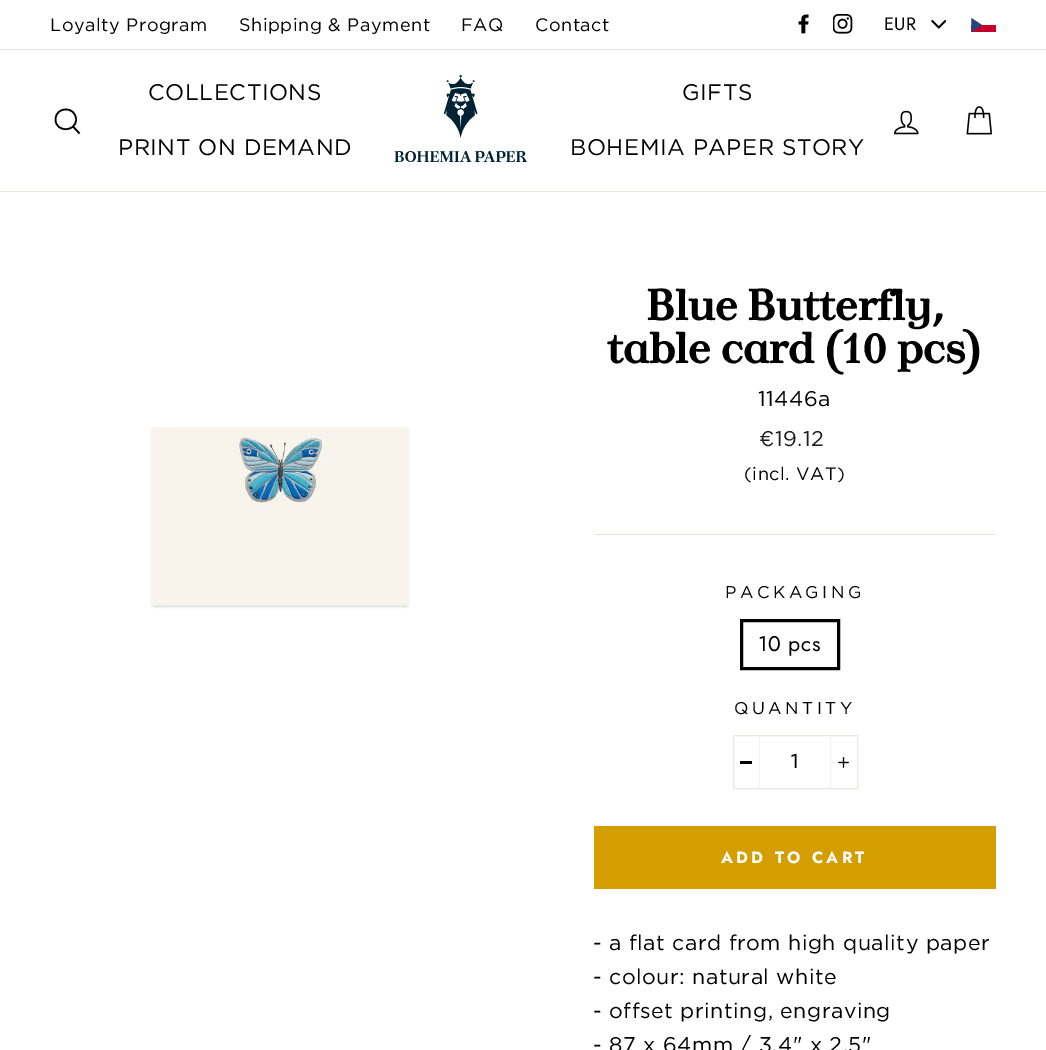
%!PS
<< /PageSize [1046 1050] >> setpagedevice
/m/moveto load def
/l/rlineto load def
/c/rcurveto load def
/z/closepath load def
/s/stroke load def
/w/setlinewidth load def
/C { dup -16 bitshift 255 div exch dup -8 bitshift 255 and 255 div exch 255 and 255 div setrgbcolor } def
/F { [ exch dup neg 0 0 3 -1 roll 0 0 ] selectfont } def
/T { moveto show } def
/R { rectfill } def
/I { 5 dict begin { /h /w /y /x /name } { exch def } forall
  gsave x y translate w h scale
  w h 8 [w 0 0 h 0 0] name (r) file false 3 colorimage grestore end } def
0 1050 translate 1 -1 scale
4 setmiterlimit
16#FFFFFF C
0 0 1046 1050 R
/Gotham-Regular 18 F
16#000000 C
50 31 m .55 0 (Loyalty Program) ashow
239 31 m .55 0 (Shipping & Payment) ashow
461 31 m .55 0 (FAQ) ashow
535 31 m .55 0 (Contact) ashow
(1.rgb) 798 14 11 20 I
(2.rgb) 833 14 20 20 I
(3.rgb) 931 20 15 9 I
/Jost-Regular 18 F
884 30 m .5 0 (EUR) ashow
(4.rgb) 971 18 25 15 I
16#E6E6E6 C
0 49 1046 1 R
16#E8E8E1 C
0 191 1046 1 R
16#000000 C
1.6 w
76 119.5 m 0 13 -20.5 13 -20.5 0 c 0 -13.5 20.5 -13.5 20.5 0 c z 79.5 133.5 m -6.5 -7 l s
/Gotham-Regular 22.5 F
148 100 m .55 0 (COLLECTIONS) ashow
118 155 m .55 0 (PRINT ON DEMAND) ashow
(5.rgb) 394 75 133 87 I
682 100 m .55 0 (GIFTS) ashow
570 155 m .55 0 (BOHEMIA PAPER STORY) ashow
(6.rgb) 894 110 25 25 I
(7.rgb) 966 106 27 29 I
(8.rgb) 150 427 260 182 I
/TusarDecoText-Bold 43 F
(Blue Butterfly,) 646 320 T
(table card \(10 pcs\)) 607 363 T
/Gotham-Regular 21.25 F
758 406 m .55 0 (11446a) ashow
16#1C1D1D C
759 446 m .55 0 (€19.12) ashow
/Gotham-Regular 18 F
16#000000 C
744 480 m .55 0 (\(incl. VAT\)) ashow
16#E8E8E1 C
594 534 402 1 R
/Gotham-Regular 17 F
16#000000 C
725 598 m 3.5 0 (PACKAGING) ashow
3 w
741.5 620.5 97 48 rectstroke
/Jost-Regular 21.25 F
758 651 m .55 0 (10 pcs) ashow
/Gotham-Regular 17 F
734 714 m 3.5 0 (QUANTITY) ashow
16#E8E8E1 C
1 w
733.5 735.5 124 53 rectstroke
16#F2F2F2 C
759 736 1 52 R
16#000000 C
740 761 12 3 R
/Jost-Regular 20 F
(1) 790 768 T
16#F2F2F2 C
830 736 1 52 R
(9.rgb) 838 757 11 11 I
16#D49D00 C
594 826 402 63 R
/Jost-Bold 16.25 F
16#FFFFFF C
721 863 m 3.25 0 (ADD TO CART) ashow
/Gotham-Regular 21.25 F
16#000000 C
593 950 m .55 0 (- a flat card from high quality paper) ashow
593 984 m .55 0 (- colour: natural white) ashow
593 1018 m .55 0 (- offset printing, engraving) ashow
593 1052 m .55 0 (- 87 x 64mm / 3,4" x 2,5") ashow
showpage
